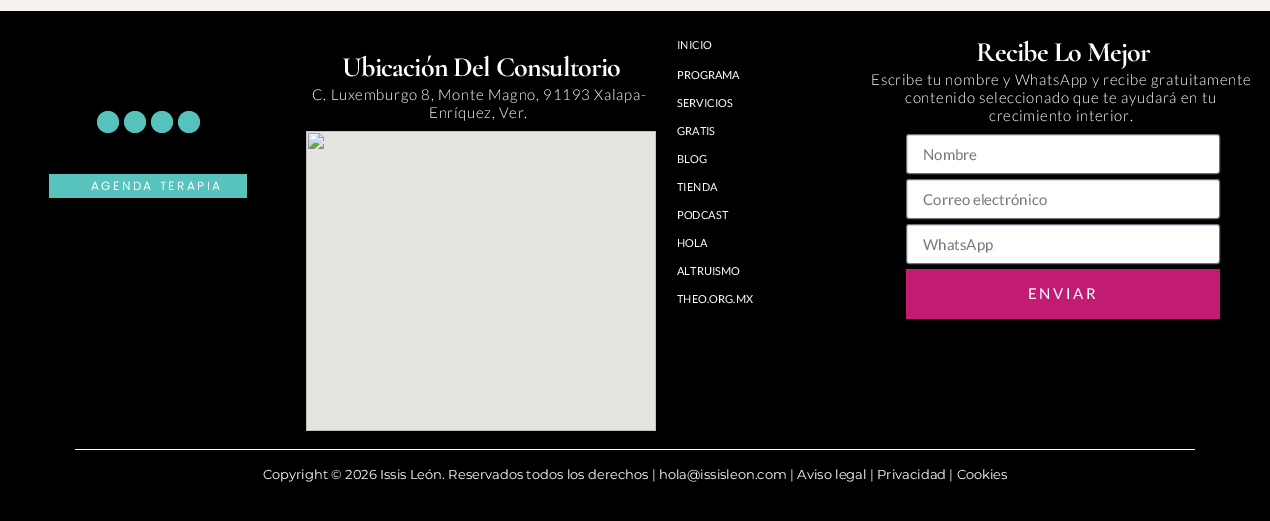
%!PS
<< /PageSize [1270 521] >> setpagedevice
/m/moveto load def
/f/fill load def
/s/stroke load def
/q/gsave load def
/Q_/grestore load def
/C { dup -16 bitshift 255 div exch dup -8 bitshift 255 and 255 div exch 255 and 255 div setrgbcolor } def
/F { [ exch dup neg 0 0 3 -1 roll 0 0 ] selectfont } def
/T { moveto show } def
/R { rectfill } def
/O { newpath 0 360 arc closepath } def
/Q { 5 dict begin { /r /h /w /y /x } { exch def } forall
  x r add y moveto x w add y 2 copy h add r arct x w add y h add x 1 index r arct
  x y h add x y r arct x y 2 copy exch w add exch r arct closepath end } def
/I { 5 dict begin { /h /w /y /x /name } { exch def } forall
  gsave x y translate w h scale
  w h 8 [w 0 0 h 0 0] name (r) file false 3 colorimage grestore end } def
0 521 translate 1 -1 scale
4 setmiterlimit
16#F8F2EF C
0 0 1270 521 R
16#000000 C
0 11 1270 510 R
/CormorantGaramond-Bold 28 F
16#FFFFFF C
342 76 m -.8 0 (Ubicación Del Consultorio) ashow
/Lato-Light 15 F
312 100 m .7 0 (C. Luxemburgo 8, Monte Magno, 91193 Xalapa-) ashow
429 118 m .7 0 (Enríquez, Ver.) ashow
(1.rgb) 306 131 350 300 I
/Lato-Regular 11 F
(INICIO) 677 49 T
(PROGRAMA) 677 79 T
(SERVICIOS) 677 107 T
(GRATIS) 677 135 T
(BLOG) 677 163 T
(TIENDA) 677 191 T
(PODCAST) 677 219 T
(HOLA) 677 247 T
(ALTRUISMO) 677 275 T
(THEO.ORG.MX) 677 303 T
/CormorantGaramond-Bold 28 F
976 61 m -.8 0 (Recibe Lo Mejor) ashow
/Lato-Light 15 F
871 85 m .7 0 (Escribe tu nombre y WhatsApp y recibe gratuitamente) ashow
905 103 m .7 0 (contenido seleccionado que te ayudará en tu) ashow
989 121 m .7 0 (crecimiento interior.) ashow
906.5 134.5 313 39 2.5 Q q f Q_
16#69727D C
s
/Lato-Regular 15 F
16#797A7C C
(Nombre) 923 160 T
16#FFFFFF C
906.5 179.5 313 39 2.5 Q q f Q_
16#69727D C
s
16#797A7C C
(Correo electrónico) 923 205 T
16#FFFFFF C
906.5 224.5 313 39 2.5 Q q f Q_
16#69727D C
s
16#797A7C C
(WhatsApp) 923 250 T
16#C21C72 C
906 269 314 50 R
16#FFFFFF C
1028 299 m 2.5 0 (ENVIAR) ashow
16#56C2BC C
108 122 11 O f
135 122 11 O f
162 122 11 O f
189 122 11 O f
16#57C3BC C
49 174 198 24 R
/Poppins-Regular 12 F
16#FFFFFF C
91 190 m 2.4 0 (AGENDA TERAPIA) ashow
75 449 1120 1 R
/Montserrat-Regular 13 F
(Copyright © 2026 Issis León. Reservados todos los derechos | hola@issisleon.com | Aviso legal | Privacidad | Cookies) 263 479 T
showpage
